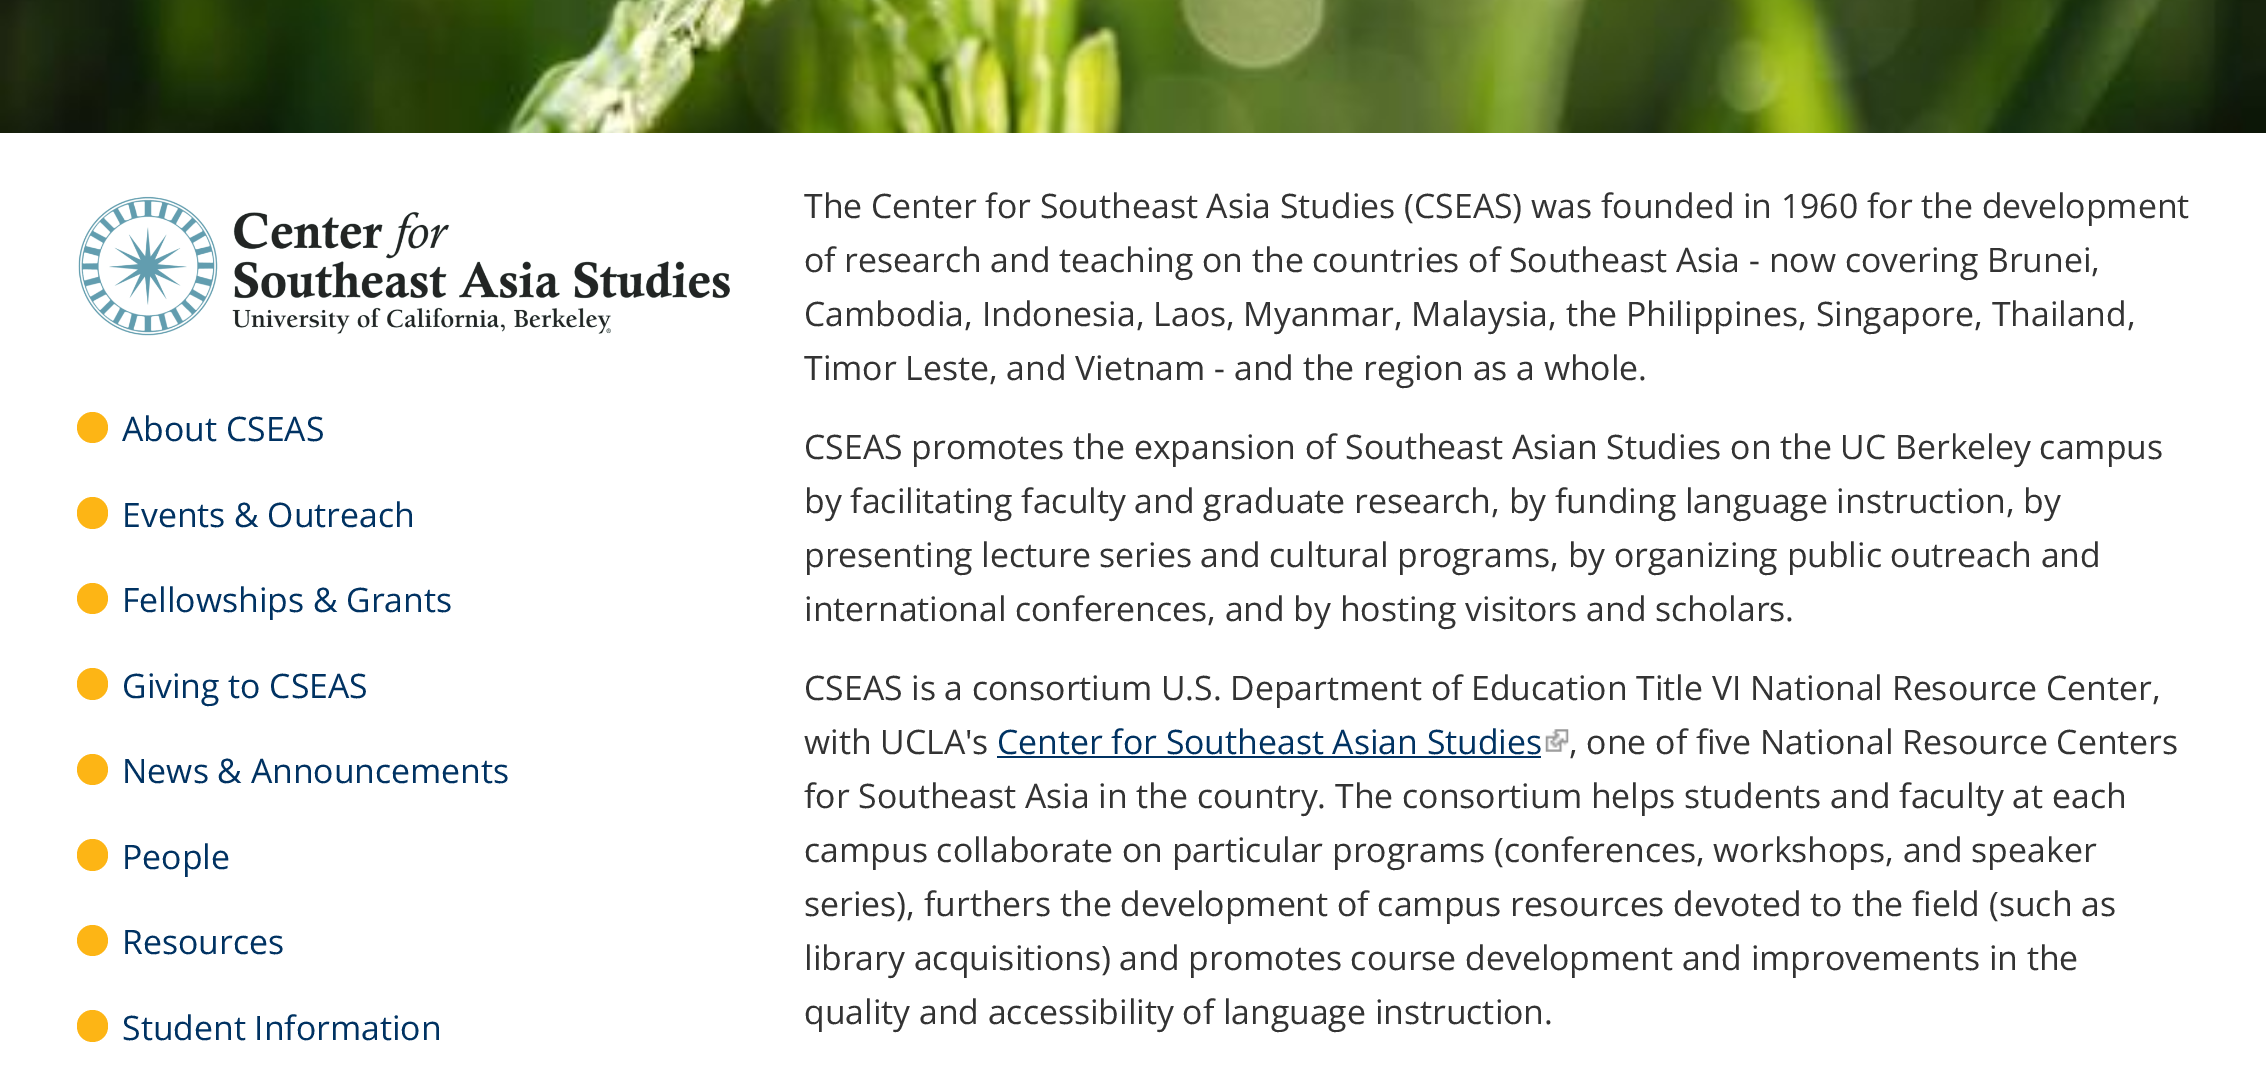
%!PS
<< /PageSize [2266 1085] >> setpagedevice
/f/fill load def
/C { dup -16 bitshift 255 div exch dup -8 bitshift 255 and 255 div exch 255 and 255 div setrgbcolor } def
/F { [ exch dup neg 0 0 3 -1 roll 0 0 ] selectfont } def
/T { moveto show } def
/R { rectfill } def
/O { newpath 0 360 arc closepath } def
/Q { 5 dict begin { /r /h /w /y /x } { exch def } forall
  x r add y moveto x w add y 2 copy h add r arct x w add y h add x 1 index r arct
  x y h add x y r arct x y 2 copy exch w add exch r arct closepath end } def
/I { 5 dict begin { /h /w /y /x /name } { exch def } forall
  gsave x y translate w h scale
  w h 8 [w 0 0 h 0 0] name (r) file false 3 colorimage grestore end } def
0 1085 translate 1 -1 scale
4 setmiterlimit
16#FFFFFF C
0 0 2266 1085 R
(1.rgb) 0 0 2266 133 I
(2.rgb) 78 196 652 140 I
16#FDB515 C
92.5 427.5 15.5 O f
/OpenSans-Regular 33.75 F
16#003262 C
(About CSEAS) 122 441 T
16#FDB515 C
77 497 31 32 15.5 Q f
16#003262 C
(Events & Outreach) 122 527 T
16#FDB515 C
92.5 598.5 15.5 O f
16#003262 C
(Fellowships & Grants) 122 612 T
16#FDB515 C
77 668 31 32 15.5 Q f
16#003262 C
(Giving to CSEAS) 122 698 T
16#FDB515 C
92.5 769.5 15.5 O f
16#003262 C
(News & Announcements) 122 783 T
16#FDB515 C
77 839 31 32 15.5 Q f
16#003262 C
(People) 122 869 T
16#FDB515 C
92.5 940.5 15.5 O f
16#003262 C
(Resources) 122 954 T
16#FDB515 C
77 1010 31 32 15.5 Q f
16#003262 C
(Student Information) 122 1040 T
16#333333 C
(The Center for Southeast Asia Studies \(CSEAS\) was founded in 1960 for the development) 804 218 T
(of research and teaching on the countries of Southeast Asia - now covering Brunei,) 804 272 T
(Cambodia, Indonesia, Laos, Myanmar, Malaysia, the Philippines, Singapore, Thailand,) 804 326 T
(Timor Leste, and Vietnam - and the region as a whole.) 804 380 T
(CSEAS promotes the expansion of Southeast Asian Studies on the UC Berkeley campus) 804 459 T
(by facilitating faculty and graduate research, by funding language instruction, by) 804 513 T
(presenting lecture series and cultural programs, by organizing public outreach and) 804 567 T
(international conferences, and by hosting visitors and scholars.) 804 621 T
(CSEAS is a consortium U.S. Department of Education Title VI National Resource Center,) 804 700 T
(with UCLA's) 804 754 T
16#003262 C
(Center for Southeast Asian Studies) 997 754 T
997 756 544 2 R
(3.rgb) 1545 729 24 23 I
16#333333 C
(, one of five National Resource Centers) 1569 754 T
(for Southeast Asia in the country. The consortium helps students and faculty at each) 804 808 T
(campus collaborate on particular programs \(conferences, workshops, and speaker) 804 862 T
(series\), furthers the development of campus resources devoted to the field \(such as) 804 916 T
(library acquisitions\) and promotes course development and improvements in the) 804 970 T
(quality and accessibility of language instruction.) 804 1024 T
showpage
